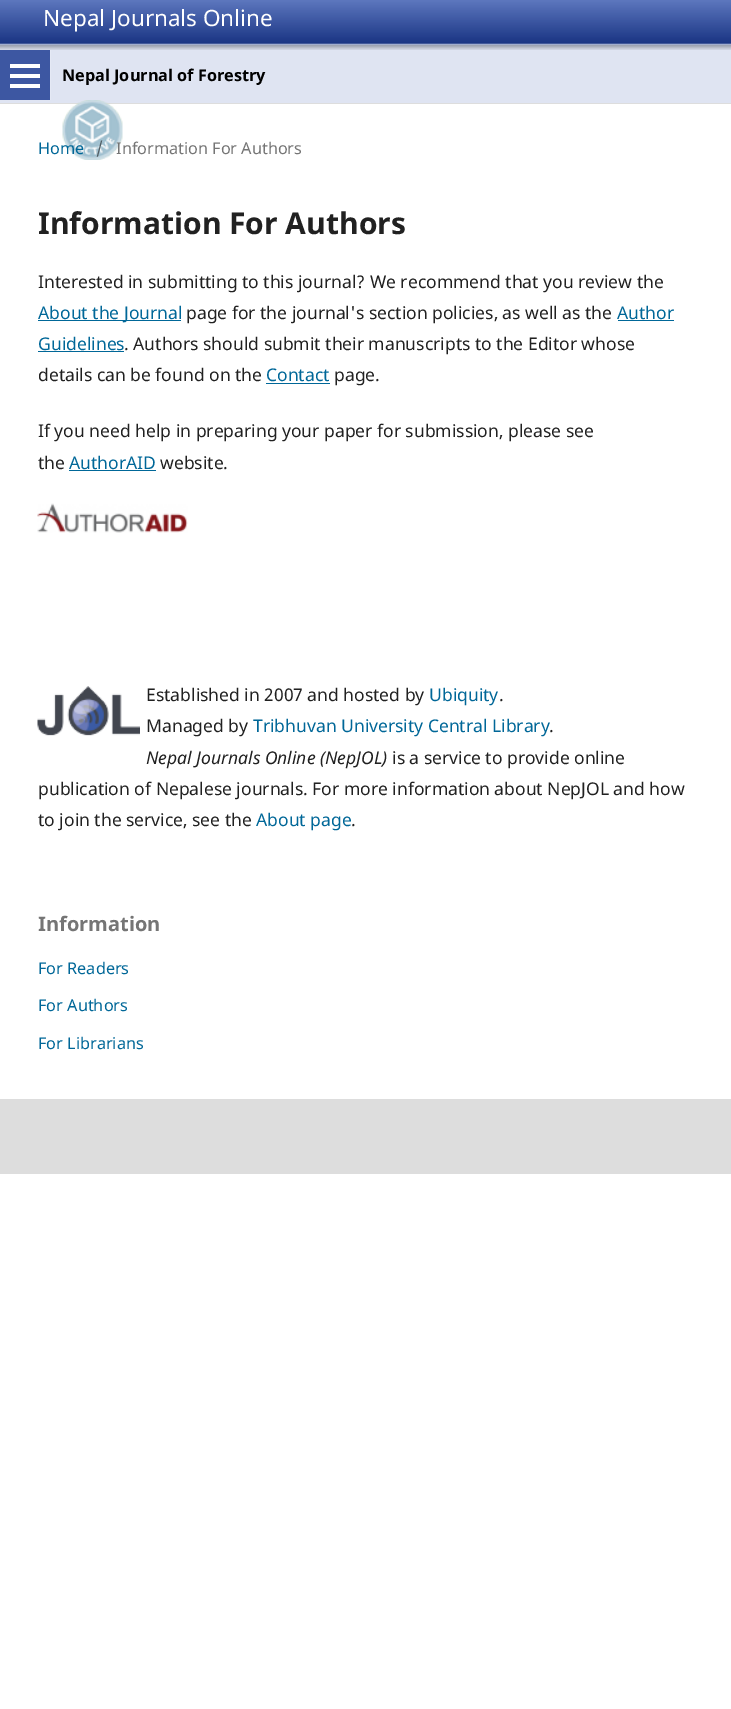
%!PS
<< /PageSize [731 1709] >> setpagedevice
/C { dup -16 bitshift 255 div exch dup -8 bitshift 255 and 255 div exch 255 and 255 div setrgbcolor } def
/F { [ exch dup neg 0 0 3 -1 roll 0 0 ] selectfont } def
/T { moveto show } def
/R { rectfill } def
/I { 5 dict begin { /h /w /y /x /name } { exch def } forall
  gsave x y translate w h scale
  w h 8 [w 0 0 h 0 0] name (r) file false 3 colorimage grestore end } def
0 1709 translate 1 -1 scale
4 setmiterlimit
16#FFFFFF C
0 0 731 1709 R
16#DFE4F2 C
0 50 731 53 R
16#DDDDDD C
0 103 731 1 R
(1.rgb) 0 0 731 50 I
/NotoSans-Regular 22.5 F
16#FFFFFF C
(Nepal Journals Online) 43 26 T
16#E5E9F5 C
50 50 1 50 R
16#3D57A2 C
0 50 50 50 R
16#FFFFFF C
10 84 30 4 R
10 64 30 4 R
10 74 30 4 R
/NotoSans-Bold 16.25 F
16#000000 C
(Nepal Journal of Forestry) 62 81 T
(2.rgb) 62 100 61 60 I
/NotoSans-Regular 16.25 F
16#006798 C
(Home) 38 154 T
16#525E64 C
(/) 96 154 T
16#757575 C
(Information For Authors) 116 154 T
/NotoSans-Bold 30 F
16#212121 C
(Information For Authors) 38 234 T
/NotoSans-Regular 17.5 F
(Interested in submitting to this journal? We recommend that you review the) 38 288 T
16#006798 C
38 320 143 1 R
(About the Journal) 38 319 T
16#212121 C
(page for the journal's section policies, as well as the) 186 319 T
16#006798 C
(Author) 617 319 T
618 320 56 1 R
(Guidelines) 38 350 T
38 351 86 1 R
16#212121 C
(. Authors should submit their manuscripts to the Editor whose) 124 350 T
(details can be found on the) 38 381 T
16#006798 C
(Contact) 266 381 T
266 383 64 1 R
16#212121 C
(page.) 334 381 T
(If you need help in preparing your paper for submission, please see) 38 437 T
(the) 38 469 T
16#006798 C
(AuthorAID) 69 469 T
69 470 87 1 R
16#212121 C
(website.) 160 469 T
(3.rgb) 37 503 151 30 I
(4.rgb) 37 686 103 50 I
(Established in 2007 and hosted by) 146 701 T
16#006798 C
(Ubiquity) 429 701 T
16#212121 C
(.) 499 701 T
(Managed by) 146 732 T
16#006798 C
(Tribhuvan University Central Library) 253 732 T
16#212121 C
(.) 549 732 T
/NotoSans-Italic 17.5 F
(Nepal Journals Online \(NepJOL\)) 146 764 T
/NotoSans-Regular 17.5 F
(is a service to provide online) 392 764 T
(publication of Nepalese journals. For more information about NepJOL and how) 38 795 T
(to join the service, see the) 38 826 T
16#006798 C
(About page) 256 826 T
16#212121 C
(.) 351 826 T
/NotoSans-Bold 20 F
16#757575 C
(Information) 38 931 T
/NotoSans-Regular 16.25 F
16#006798 C
(For Readers) 38 974 T
(For Authors) 38 1011 T
(For Librarians) 38 1049 T
16#DDDDDD C
0 1099 731 75 R
showpage
